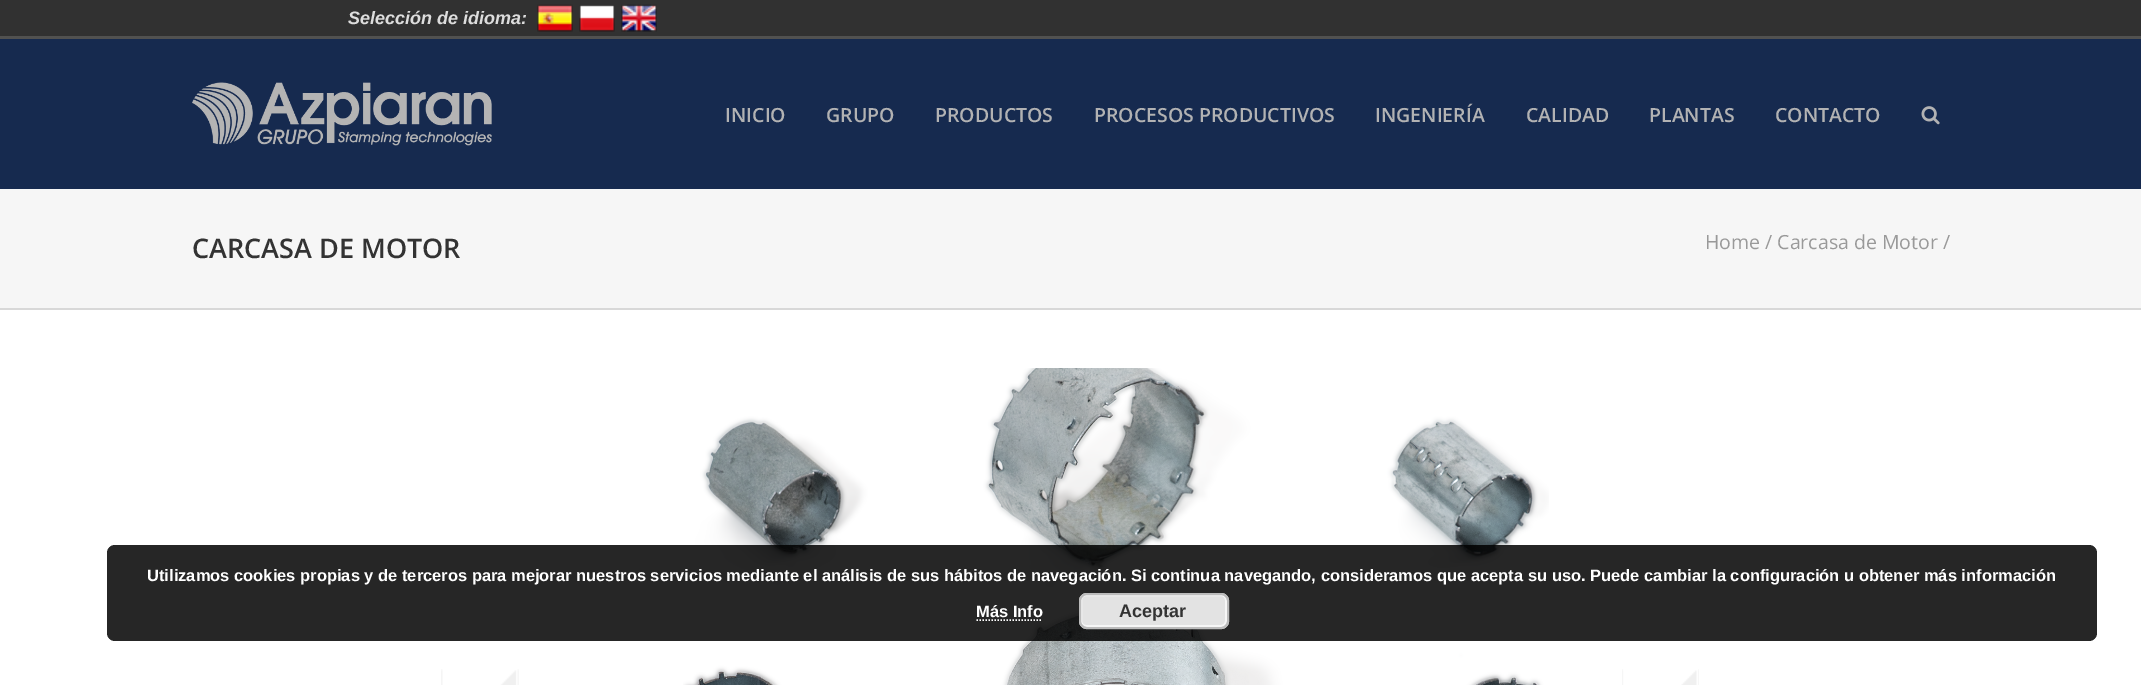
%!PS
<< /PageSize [2141 685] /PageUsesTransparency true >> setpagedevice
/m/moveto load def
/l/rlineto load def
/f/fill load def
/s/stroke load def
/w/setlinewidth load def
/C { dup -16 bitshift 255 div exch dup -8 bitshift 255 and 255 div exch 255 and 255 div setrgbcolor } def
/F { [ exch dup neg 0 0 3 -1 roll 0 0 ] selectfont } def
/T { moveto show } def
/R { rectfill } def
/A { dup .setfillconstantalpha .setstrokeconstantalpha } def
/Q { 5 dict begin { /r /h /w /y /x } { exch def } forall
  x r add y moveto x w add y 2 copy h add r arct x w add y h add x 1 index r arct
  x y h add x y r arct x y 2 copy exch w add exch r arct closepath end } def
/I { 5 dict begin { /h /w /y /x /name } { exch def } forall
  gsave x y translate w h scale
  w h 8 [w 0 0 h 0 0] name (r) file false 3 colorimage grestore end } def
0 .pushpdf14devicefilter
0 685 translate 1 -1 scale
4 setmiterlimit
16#FFFFFF C
0 0 2141 685 R
16#313131 C
0 0 2141 36 R
16#515150 C
0 36 2141 3 R
/LiberationSans-BoldItalic 18 F
16#DDDDDD C
(Selección de idioma:) 348 24 T
(1.rgb) 537 4 36 28 I
(2.rgb) 579 5 36 27 I
(3.rgb) 621 4 36 28 I
16#162A4F C
0 39 2141 150 R
(4.rgb) 192 82 300 64 I
/OpenSans-SemiBold 19.5 F
16#B2B2B3 C
(INICIO) 725 122 T
(GRUPO) 826 122 T
(PRODUCTOS) 935 122 T
(PROCESOS PRODUCTIVOS) 1094 122 T
(INGENIERÍA) 1375 122 T
(CALIDAD) 1526 122 T
(PLANTAS) 1649 122 T
(CONTACTO) 1775 122 T
(5.rgb) 1921 106 19 19 I
16#F6F6F6 C
0 189 2141 119 R
16#D8D8D8 C
0 308 2141 2 R
/OpenSans-SemiBold 27 F
16#333333 C
(CARCASA DE MOTOR) 192 258 T
/OpenSans-Regular 19.5 F
16#999999 C
(Home / Carcasa de Motor /) 1705 249 T
(6.rgb) 441 669 78 16 I
(7.rgb) 683 368 866 317 I
(8.rgb) 1622 669 77 16 I
0.85 A
16#000000 C
107 545 1990 96 8 Q f
/LiberationSans-Bold 16.5 F
1 A
16#FFFFFF C
(Utilizamos cookies propias y de terceros para mejorar nuestros servicios mediante el análisis de sus hábitos de navegación. Si continua navegando, consideramos que acepta su uso. Puede cambiar la configuración u obtener más información) 147 581 T
(Más Info) 976 617 T
1.5 w
[1.5 1.5] 0 setdash
976.5 620 m 66 0 l s
16#E3E3E3 C
1079 593 150 36 8 Q f
16#F6F6F6 C
2 w
[] 0 setdash
1081 595 145 31 5 Q s
16#BBBBBB C
1080 594 148 34 7 Q s
/LiberationSans-Bold 18 F
16#333333 C
(Aceptar) 1119 617 T
.poppdf14devicefilter showpage
